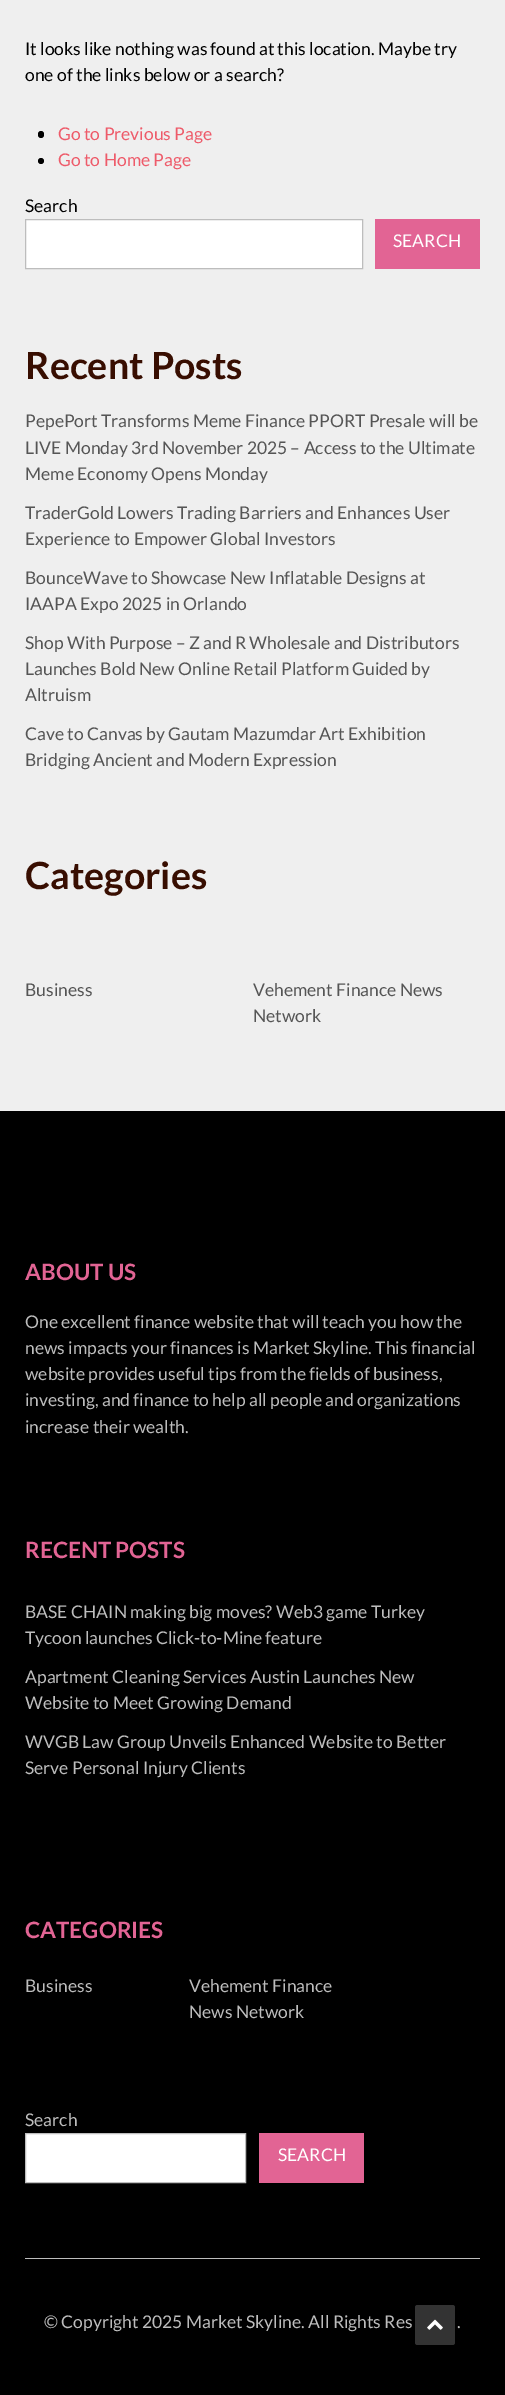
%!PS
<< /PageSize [505 2395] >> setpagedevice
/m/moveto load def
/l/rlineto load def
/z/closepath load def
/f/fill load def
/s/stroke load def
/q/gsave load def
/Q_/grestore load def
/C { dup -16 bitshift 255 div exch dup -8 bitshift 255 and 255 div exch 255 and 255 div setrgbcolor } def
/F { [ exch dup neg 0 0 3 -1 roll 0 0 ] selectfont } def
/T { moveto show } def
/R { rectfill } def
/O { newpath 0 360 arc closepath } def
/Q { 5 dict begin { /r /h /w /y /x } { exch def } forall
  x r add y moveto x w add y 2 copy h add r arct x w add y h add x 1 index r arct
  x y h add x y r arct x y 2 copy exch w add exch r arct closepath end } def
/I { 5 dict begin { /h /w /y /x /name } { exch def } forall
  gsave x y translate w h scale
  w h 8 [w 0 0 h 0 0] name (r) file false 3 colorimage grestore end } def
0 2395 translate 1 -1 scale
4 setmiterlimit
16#EFEFEF C
0 0 505 2395 R
/Lato-Regular 17.5 F
16#000000 C
(It looks like nothing was found at this location. Maybe try) 25 55 T
(one of the links below or a search?) 25 81 T
38 131 6 7 3 Q f
16#EE5B6A C
(Go to Previous Page) 58 140 T
16#000000 C
41 161 3 O f
16#EE5B6A C
(Go to Home Page) 58 166 T
16#000000 C
(Search) 25 212 T
16#FFFFFF C
25.5 219.5 m 337 0 l 0 49 l -337 0 l z q f Q_
16#BDBDBD C
s
16#E26494 C
375 219 105 50 R
16#FFFFFF C
(SEARCH) 393 247 T
/Lato-Bold 37.5 F
16#380E01 C
(Recent Posts) 25 379 T
/Lato-Regular 17.5 F
16#555555 C
(PepePort Transforms Meme Finance PPORT Presale will be) 25 427 T
(LIVE Monday 3rd November 2025 – Access to the Ultimate) 25 454 T
(Meme Economy Opens Monday) 25 480 T
(TraderGold Lowers Trading Barriers and Enhances User) 25 519 T
(Experience to Empower Global Investors) 25 545 T
(BounceWave to Showcase New Inflatable Designs at) 25 584 T
(IAAPA Expo 2025 in Orlando) 25 610 T
(Shop With Purpose – Z and R Wholesale and Distributors) 25 649 T
(Launches Bold New Online Retail Platform Guided by) 25 675 T
(Altruism) 25 701 T
(Cave to Canvas by Gautam Mazumdar Art Exhibition) 25 740 T
(Bridging Ancient and Modern Expression) 25 766 T
/Lato-Bold 37.5 F
16#380E01 C
(Categories) 25 889 T
/Lato-Regular 17.5 F
16#555555 C
(Business) 25 996 T
(Vehement Finance News) 253 996 T
(Network) 253 1022 T
16#000000 C
0 1111 505 1284 R
/Lato-Bold 22.5 F
16#E26494 C
(ABOUT US) 25 1280 T
/Lato-Regular 17.5 F
16#BDBDBD C
(One excellent finance website that will teach you how the) 25 1328 T
(news impacts your finances is Market Skyline. This financial) 25 1354 T
(website provides useful tips from the fields of business,) 25 1380 T
(investing, and finance to help all people and organizations) 25 1406 T
(increase their wealth.) 25 1433 T
/Lato-Bold 22.5 F
16#E26494 C
(RECENT POSTS) 25 1558 T
/Lato-Regular 17.5 F
16#BDBDBD C
(BASE CHAIN making big moves? Web3 game Turkey) 25 1618 T
(Tycoon launches Click-to-Mine feature) 25 1644 T
(Apartment Cleaning Services Austin Launches New) 25 1683 T
(Website to Meet Growing Demand) 25 1709 T
(WVGB Law Group Unveils Enhanced Website to Better) 25 1748 T
(Serve Personal Injury Clients) 25 1774 T
/Lato-Bold 22.5 F
16#E26494 C
(CATEGORIES) 25 1938 T
/Lato-Regular 17.5 F
16#BDBDBD C
(Business) 25 1992 T
(Vehement Finance) 189 1992 T
(News Network) 189 2018 T
(Search) 25 2126 T
16#FFFFFF C
25.5 2133.5 m 220 0 l 0 49 l -220 0 l z q f Q_
16#BDBDBD C
s
16#E26494 C
259 2133 105 50 R
16#FFFFFF C
(SEARCH) 278 2161 T
16#BDBDBD C
25 2258 455 1 R
(© Copyright 2025 Market Skyline. All Rights Res) 44 2328 T
(.) 457 2328 T
16#333333 C
415 2305 40 40 2.5 Q f
(1.rgb) 427 2319 16 11 I
showpage
